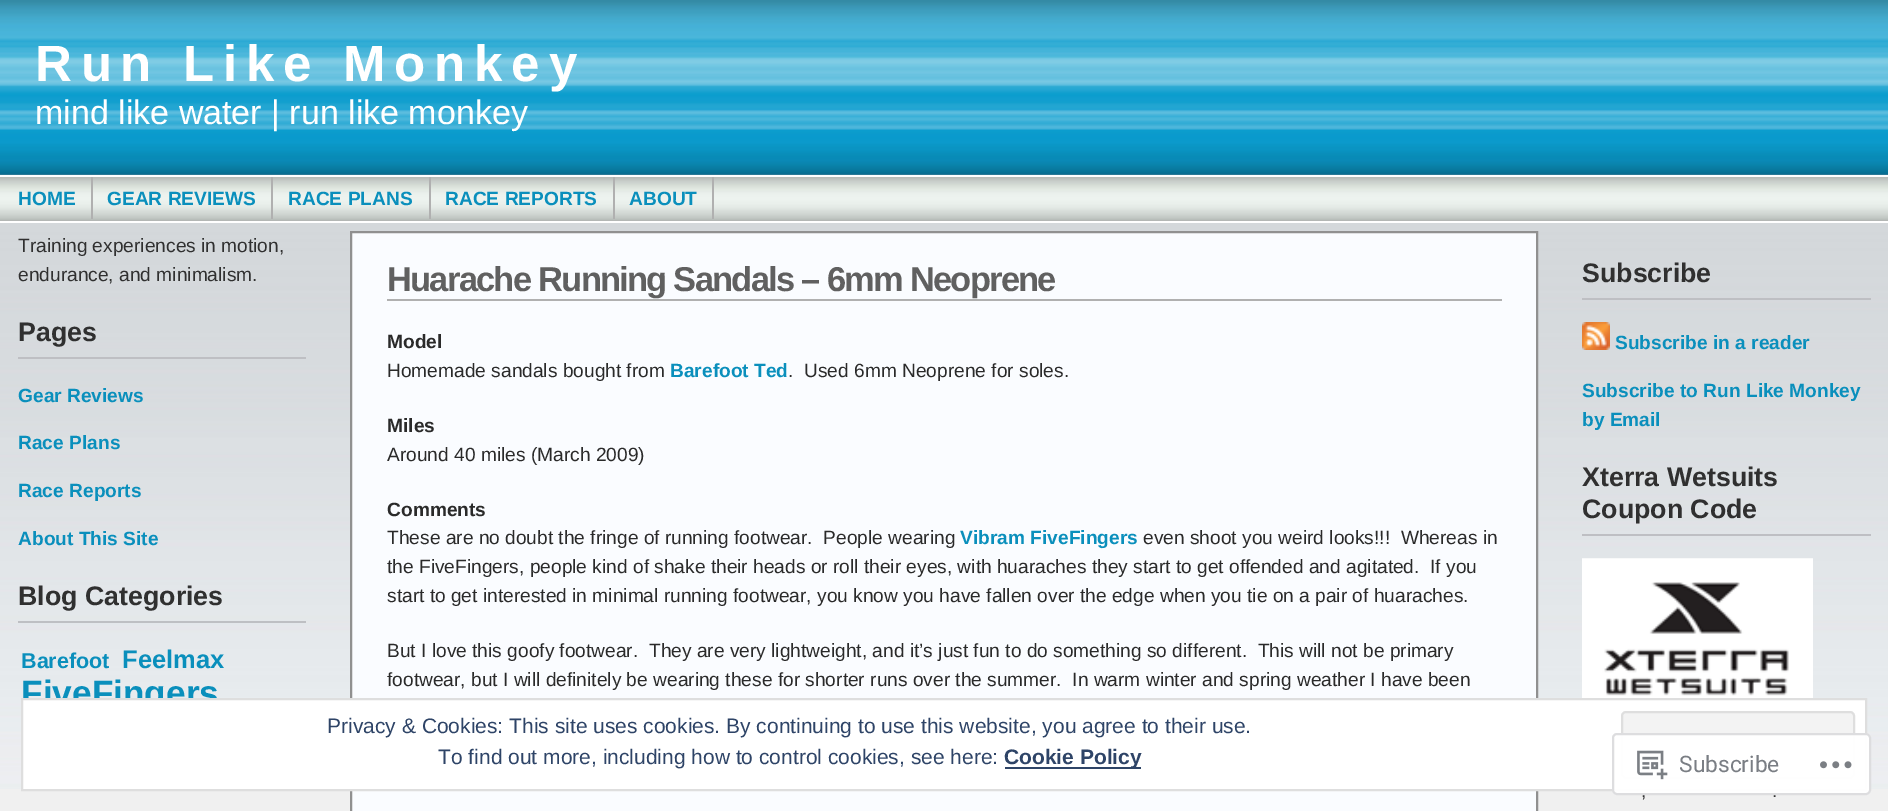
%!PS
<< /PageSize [1888 811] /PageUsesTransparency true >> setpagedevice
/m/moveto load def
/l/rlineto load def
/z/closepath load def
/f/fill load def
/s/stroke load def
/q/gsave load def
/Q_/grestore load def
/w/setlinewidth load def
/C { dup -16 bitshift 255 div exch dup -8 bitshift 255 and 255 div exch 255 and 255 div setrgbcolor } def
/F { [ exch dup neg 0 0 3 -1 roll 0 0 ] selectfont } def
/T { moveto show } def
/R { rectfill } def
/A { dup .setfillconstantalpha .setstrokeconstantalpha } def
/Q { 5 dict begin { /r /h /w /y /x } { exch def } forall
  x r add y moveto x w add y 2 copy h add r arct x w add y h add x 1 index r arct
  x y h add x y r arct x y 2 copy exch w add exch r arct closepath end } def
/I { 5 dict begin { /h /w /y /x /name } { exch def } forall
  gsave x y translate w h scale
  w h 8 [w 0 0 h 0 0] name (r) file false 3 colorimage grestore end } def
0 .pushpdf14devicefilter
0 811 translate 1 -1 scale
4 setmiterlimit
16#F0F0F0 C
0 0 1888 811 R
(1.rgb) 0 0 1888 789 I
/LiberationSans-Bold 51 F
16#FFFFFF C
35 81 m 8.75 0 (Run Like Monkey) ashow
/LiberationSans-Regular 34 F
(mind like water | run like monkey) 35 124 T
16#B0B0B0 C
0 220 1888 1 R
(2.rgb) 0 177 1888 44 I
16#FFFFFF C
0 175 1888 2 R
0 221 1888 2 R
/LiberationSans-Bold 19.15 F
16#0A8FBC C
(HOME) 18 205 T
16#B0B0B0 C
91 177 2 42 R
16#0A8FBC C
(GEAR REVIEWS) 107 205 T
16#B0B0B0 C
271 177 2 42 R
16#0A8FBC C
(RACE PLANS) 288 205 T
16#B0B0B0 C
429 177 2 42 R
16#0A8FBC C
(RACE REPORTS) 445 205 T
16#B0B0B0 C
613 177 2 42 R
16#0A8FBC C
(ABOUT) 629 205 T
16#B0B0B0 C
712 177 2 42 R
/LiberationSans-Regular 19.15 F
16#303030 C
(Training experiences in motion,) 18 252 T
(endurance, and minimalism.) 18 281 T
16#BEBFC3 C
18 357 288 2 R
/LiberationSans-Bold 26.75 F
16#303030 C
(Pages) 18 341 T
/LiberationSans-Bold 19.15 F
16#0A8FBC C
(Gear Reviews) 18 402 T
(Race Plans) 18 449 T
(Race Reports) 18 497 T
(About This Site) 18 545 T
16#BEBFC3 C
18 621 288 2 R
/LiberationSans-Bold 26.75 F
16#303030 C
(Blog Categories) 18 605 T
/LiberationSans-Bold 21.5 F
16#0A8FBC C
(Barefoot) 21 668 T
/LiberationSans-Bold 25.5 F
(Feelmax) 122 668 T
/LiberationSans-Bold 35.25 F
(FiveFingers) 21 705 T
16#FAFCFF C
351 232 m 1186 0 l 0 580 l -1186 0 l z q f Q_
16#909090 C
2 w
s
16#B0B0B0 C
387 299 1115 2 R
/LiberationSans-Bold 34.5 F
16#606060 C
387 291 m -1.75 0 (Huarache Running Sandals – 6mm Neoprene) ashow
/LiberationSans-Bold 19.15 F
16#2A2A2A C
(Model) 387 348 T
/LiberationSans-Regular 19.15 F
(Homemade sandals bought from) 387 377 T
/LiberationSans-Bold 19.15 F
16#0A8FBC C
(Barefoot Ted) 670 377 T
/LiberationSans-Regular 19.15 F
16#2A2A2A C
(.  Used 6mm Neoprene for soles.) 788 377 T
/LiberationSans-Bold 19.15 F
(Miles) 387 432 T
/LiberationSans-Regular 19.15 F
(Around 40 miles \(March 2009\)) 387 461 T
/LiberationSans-Bold 19.15 F
(Comments) 387 516 T
/LiberationSans-Regular 19.15 F
(These are no doubt the fringe of running footwear.  People wearing) 387 544 T
/LiberationSans-Bold 19.15 F
16#0A8FBC C
(Vibram FiveFingers) 960 544 T
/LiberationSans-Regular 19.15 F
16#2A2A2A C
(even shoot you weird looks!!!  Whereas in) 1143 544 T
(the FiveFingers, people kind of shake their heads or roll their eyes, with huaraches they start to get offended and agitated.  If you) 387 573 T
(start to get interested in minimal running footwear, you know you have fallen over the edge when you tie on a pair of huaraches.) 387 602 T
(But I love this goofy footwear.  They are very lightweight, and it’s just fun to do something so different.  This will not be primary) 387 657 T
(footwear, but I will definitely be wearing these for shorter runs over the summer.  In warm winter and spring weather I have been) 387 686 T
16#BEBFC3 C
1582 298 289 2 R
/LiberationSans-Bold 26.75 F
16#303030 C
(Subscribe) 1582 282 T
(3.rgb) 1582 322 28 28 I
/LiberationSans-Bold 19.15 F
16#0A8FBC C
(Subscribe in a reader) 1615 349 T
(Subscribe to Run Like Monkey) 1582 397 T
(by Email) 1582 426 T
16#BEBFC3 C
1582 534 289 2 R
/LiberationSans-Bold 26.75 F
16#303030 C
(Xterra Wetsuits) 1582 486 T
(Coupon Code) 1582 518 T
(4.rgb) 1582 558 231 140 I
/LiberationSans-Regular 19.15 F
(,) 1641 797 T
(.) 1772 797 T
16#FFFFFF C
22 699 m 1844 0 l 0 91 l -1844 0 l z q f Q_
16#DEDEDE C
s
/LiberationSans-Regular 21 F
16#2E4467 C
(Privacy & Cookies: This site uses cookies. By continuing to use this website, you agree to their use.) 327 733 T
16#F3F3F3 C
1622 712 232 66 4 Q q f Q_
16#DEDEDE C
s
16#2E4467 C
(To find out more, including how to control cookies, see here:) 438 764 T
1005 767 136 2 R
/LiberationSans-Bold 21 F
(Cookie Policy) 1004 764 T
0.98 A
16#FFFFFF C
1612 733 259 62 5 Q f
16#DCDCDE C
1613 734 257 60 4 Q s
1 A
(5.rgb) 1637 750 31 30 I
/Roboto-Regular 22.75 F
16#7A7E84 C
(Subscribe) 1679 772 T
(6.rgb) 1820 761 32 8 I
.poppdf14devicefilter showpage
